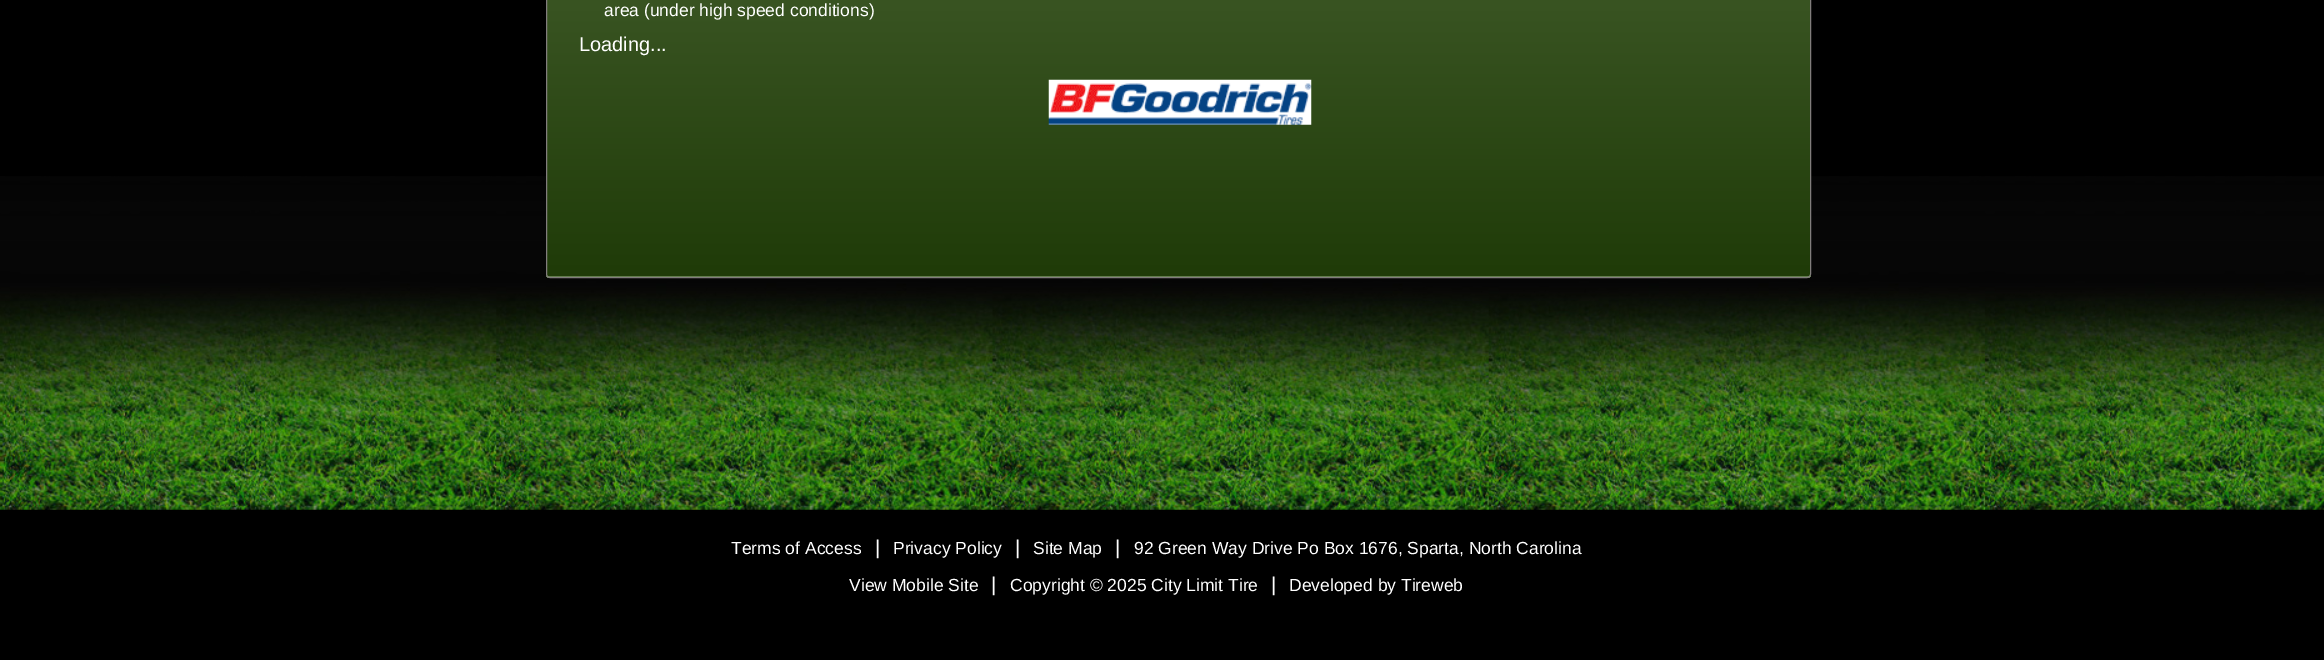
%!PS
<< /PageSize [2324 660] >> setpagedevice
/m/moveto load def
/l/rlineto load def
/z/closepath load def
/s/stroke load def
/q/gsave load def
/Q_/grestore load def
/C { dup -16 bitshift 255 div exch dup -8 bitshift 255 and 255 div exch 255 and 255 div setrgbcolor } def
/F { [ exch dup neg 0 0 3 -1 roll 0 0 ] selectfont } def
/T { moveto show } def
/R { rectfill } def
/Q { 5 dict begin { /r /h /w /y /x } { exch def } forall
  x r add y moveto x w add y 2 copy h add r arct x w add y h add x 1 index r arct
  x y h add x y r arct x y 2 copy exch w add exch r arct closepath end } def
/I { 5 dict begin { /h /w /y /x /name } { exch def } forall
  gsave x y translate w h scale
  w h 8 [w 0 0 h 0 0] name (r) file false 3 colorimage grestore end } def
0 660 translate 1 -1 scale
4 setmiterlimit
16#000000 C
0 0 2324 660 R
(1.rgb) 0 176 2324 334 I
q 546 0 m 1265 0 l 0 276 l -1265 0 l z clip newpath
<< /ShadingType 2 /ColorSpace /DeviceRGB /Coords [1179 -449 1179 276] /Extend [true true] /Function << /FunctionType 2 /Domain [0 1] /C0 [.384 .49 .302] /C1 [.122 .231 .031] /N 1 >> >> shfill Q_
q
546 -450 1265 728 4 Q clip newpath
q 546 276 m 1265 0 l 0 2 l -1265 0 l z clip newpath
<< /ShadingType 2 /ColorSpace /DeviceRGB /Coords [1179 276 1179 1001] /Extend [true true] /Function << /FunctionType 2 /Domain [0 1] /C0 [.384 .49 .302] /C1 [.122 .231 .031] /N 1 >> >> shfill Q_
Q_
16#817D7C C
546.5 -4.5 1264 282 3.5 Q s
/LiberationSans-Regular 17.5 F
16#FFFFFF C
(area \(under high speed conditions\)) 604 16 T
/LiberationSans-Regular 20 F
(Loading...) 579 51 T
(2.rgb) 1048 79 264 46 I
/LiberationSans-Regular 17.5 F
(Terms of Access) 731 554 T
/LiberationSans-Regular 20 F
(|) 875 554 T
/LiberationSans-Regular 17.5 F
(Privacy Policy) 893 554 T
/LiberationSans-Regular 20 F
(|) 1015 554 T
/LiberationSans-Regular 17.5 F
(Site Map) 1033 554 T
/LiberationSans-Regular 20 F
(|) 1115 554 T
/LiberationSans-Regular 17.5 F
(92 Green Way Drive Po Box 1676, Sparta, North Carolina) 1134 554 T
(View Mobile Site) 849 591 T
/LiberationSans-Regular 20 F
(|) 991 591 T
/LiberationSans-Regular 17.5 F
(Copyright © 2025 City Limit Tire) 1010 591 T
/LiberationSans-Regular 20 F
(|) 1271 591 T
/LiberationSans-Regular 17.5 F
(Developed by Tireweb) 1289 591 T
showpage
